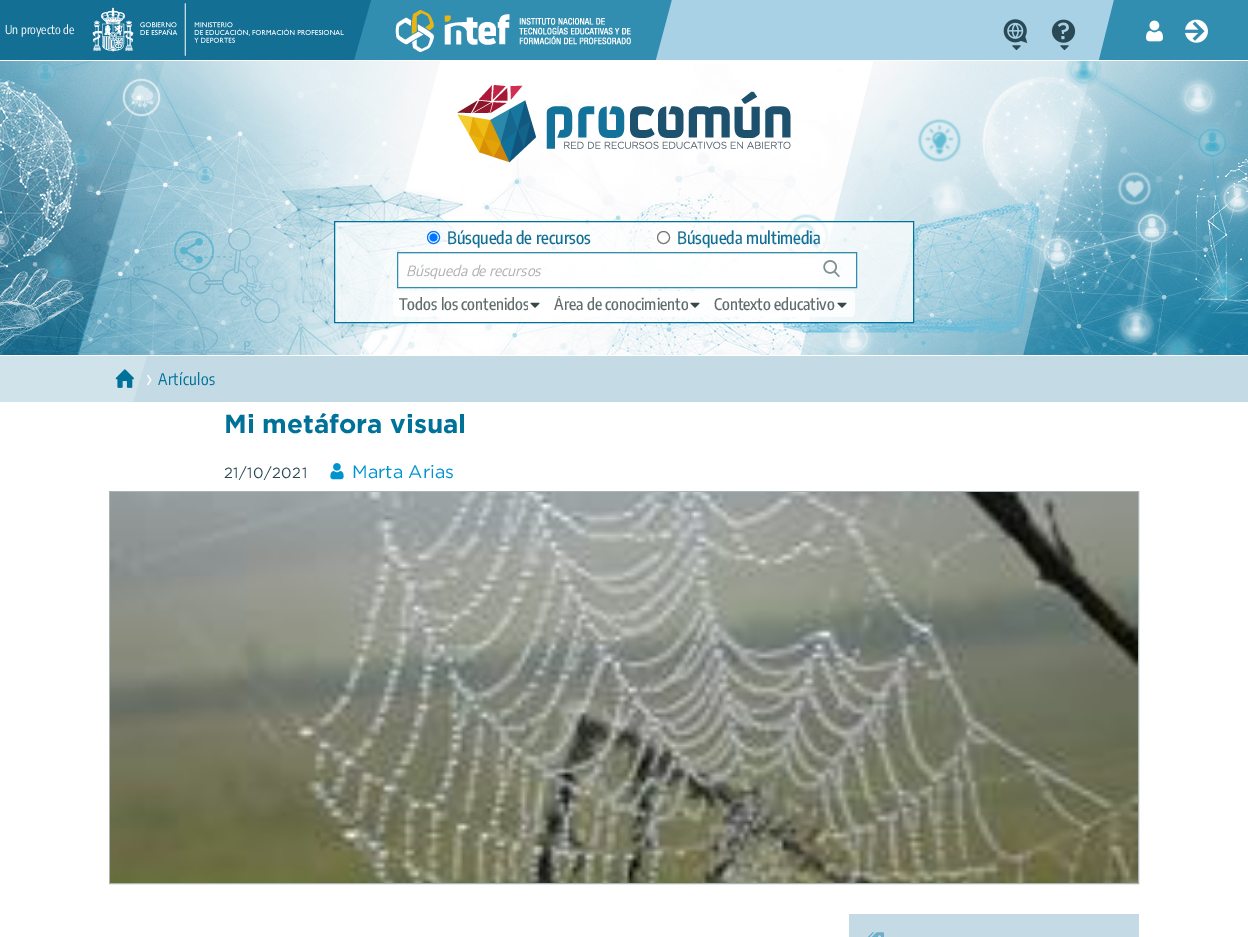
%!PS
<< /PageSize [1248 937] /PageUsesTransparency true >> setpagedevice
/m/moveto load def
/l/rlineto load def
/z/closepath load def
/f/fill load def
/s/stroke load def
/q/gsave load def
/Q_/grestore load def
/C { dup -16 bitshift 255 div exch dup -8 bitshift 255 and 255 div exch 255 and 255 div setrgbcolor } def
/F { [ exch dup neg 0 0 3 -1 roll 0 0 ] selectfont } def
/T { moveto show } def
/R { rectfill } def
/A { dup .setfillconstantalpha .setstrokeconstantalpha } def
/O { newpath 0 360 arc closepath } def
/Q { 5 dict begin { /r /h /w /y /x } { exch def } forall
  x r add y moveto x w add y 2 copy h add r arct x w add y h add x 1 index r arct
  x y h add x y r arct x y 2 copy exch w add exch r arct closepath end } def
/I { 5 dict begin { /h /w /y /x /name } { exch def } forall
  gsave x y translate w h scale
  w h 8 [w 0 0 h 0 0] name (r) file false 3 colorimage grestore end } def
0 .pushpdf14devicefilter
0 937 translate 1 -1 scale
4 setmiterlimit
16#FFFFFF C
0 0 1248 937 R
16#136F94 C
0 0 351 60 R
/EncodeSansCondensed-Regular 12 F
16#FFFFFF C
(Un proyecto de) 5 34 T
(1.rgb) 92 3 252 53 I
16#328EB0 C
354 0 318 60 R
16#136F94 C
351 0 m 20 0 l -17 60 l -3 0 l z f
(2.rgb) 395 10 236 42 I
16#A8D1E5 C
676 60 m -20 0 l 16 -60 l 4 0 l z f
676 0 438 60 R
(3.rgb) 1003 19 25 24 I
(4.rgb) 1012 45 9 6 I
(5.rgb) 1051 19 25 24 I
(4.rgb) 1060 45 9 6 I
16#328EB0 C
1119 60 m -20 0 l 15 -60 l 5 0 l z f
1119 0 129 60 R
(6.rgb) 1146 20 17 22 I
(7.rgb) 1185 19 23 24 I
(8.rgb) 0 61 1248 294 I
(9.rgb) 457 85 334 78 I
0.7 A
16#FFFFFF C
334.5 221.5 m 579 0 l 0 101 l -579 0 l z f
1 A
16#007199 C
334.5 221.5 m 579 0 l 0 101 l -579 0 l z s
16#FFFFFF C
433.5 237.5 6 O q f Q_
16#0075FF C
s
433.5 237.5 4 O f
/EncodeSansCondensed-Medium 17 F
16#136F94 C
(Búsqueda de recursos) 447 244 T
16#FFFFFF C
663.5 237.5 6 O q f Q_
16#767676 C
s
16#136F94 C
(Búsqueda multimedia) 677 244 T
0.8 A
16#FFFFFF C
397 252 460 36 R
0.06 A
16#000000 C
398 253 458 1 R
0.8 A
16#007199 C
397.5 252.5 459 35 rectstroke
/EncodeSans-Italic 14 F
1 A
16#ADADAD C
(Búsqueda de recursos) 406 276 T
(10.rgb) 823 260 17 17 I
0.8 A
16#FFFFFF C
393 291 155 26 4 Q f
q
399 296 129 16 rectclip
/EncodeSansCondensed-Medium 16 F
1 A
16#616C6D C
(Todos los contenidos) 399 310 T
Q_
1 A
(11.rgb) 530 302 10 6 I
0.8 A
548 291 160 26 4 Q f
q
554 296 134 16 rectclip
/EncodeSansCondensed-Medium 16 F
1 A
16#616C6D C
(Área de conocimiento) 554 310 T
Q_
1 A
(12.rgb) 690 302 10 6 I
0.8 A
708 291 147 26 4 Q f
/EncodeSansCondensed-Medium 16 F
1 A
16#616C6D C
(Contexto educativo) 714 310 T
(13.rgb) 837 302 10 6 I
16#C4DBE5 C
133 356 1115 46 R
16#D0E2EA C
-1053 356 m 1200 0 l -14 46 l -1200 0 l z f
(14.rgb) 115 369 19 19 I
(15.rgb) 147 374 5 12 I
/EncodeSansCondensed-Regular 16 F
16#007199 C
158 385 m .5 0 (Artículos) ashow
/Gotham-Bold 26 F
(Mi metáfora visual) 224 433 T
/Gotham-Regular 14.75 F
16#294956 C
224 478 m .5 0 (21/10/2021) ashow
(16.rgb) 330 463 14 17 I
/Gotham-Regular 18 F
16#0094CE C
(Marta Arias) 352 478 T
16#A9B5B5 C
109.5 491.5 1029 392 rectstroke
(17.rgb) 110 492 1028 391 I
16#C4DBE5 C
849 914 290 23 R
(18.rgb) 868 932 16 5 I
.poppdf14devicefilter showpage
